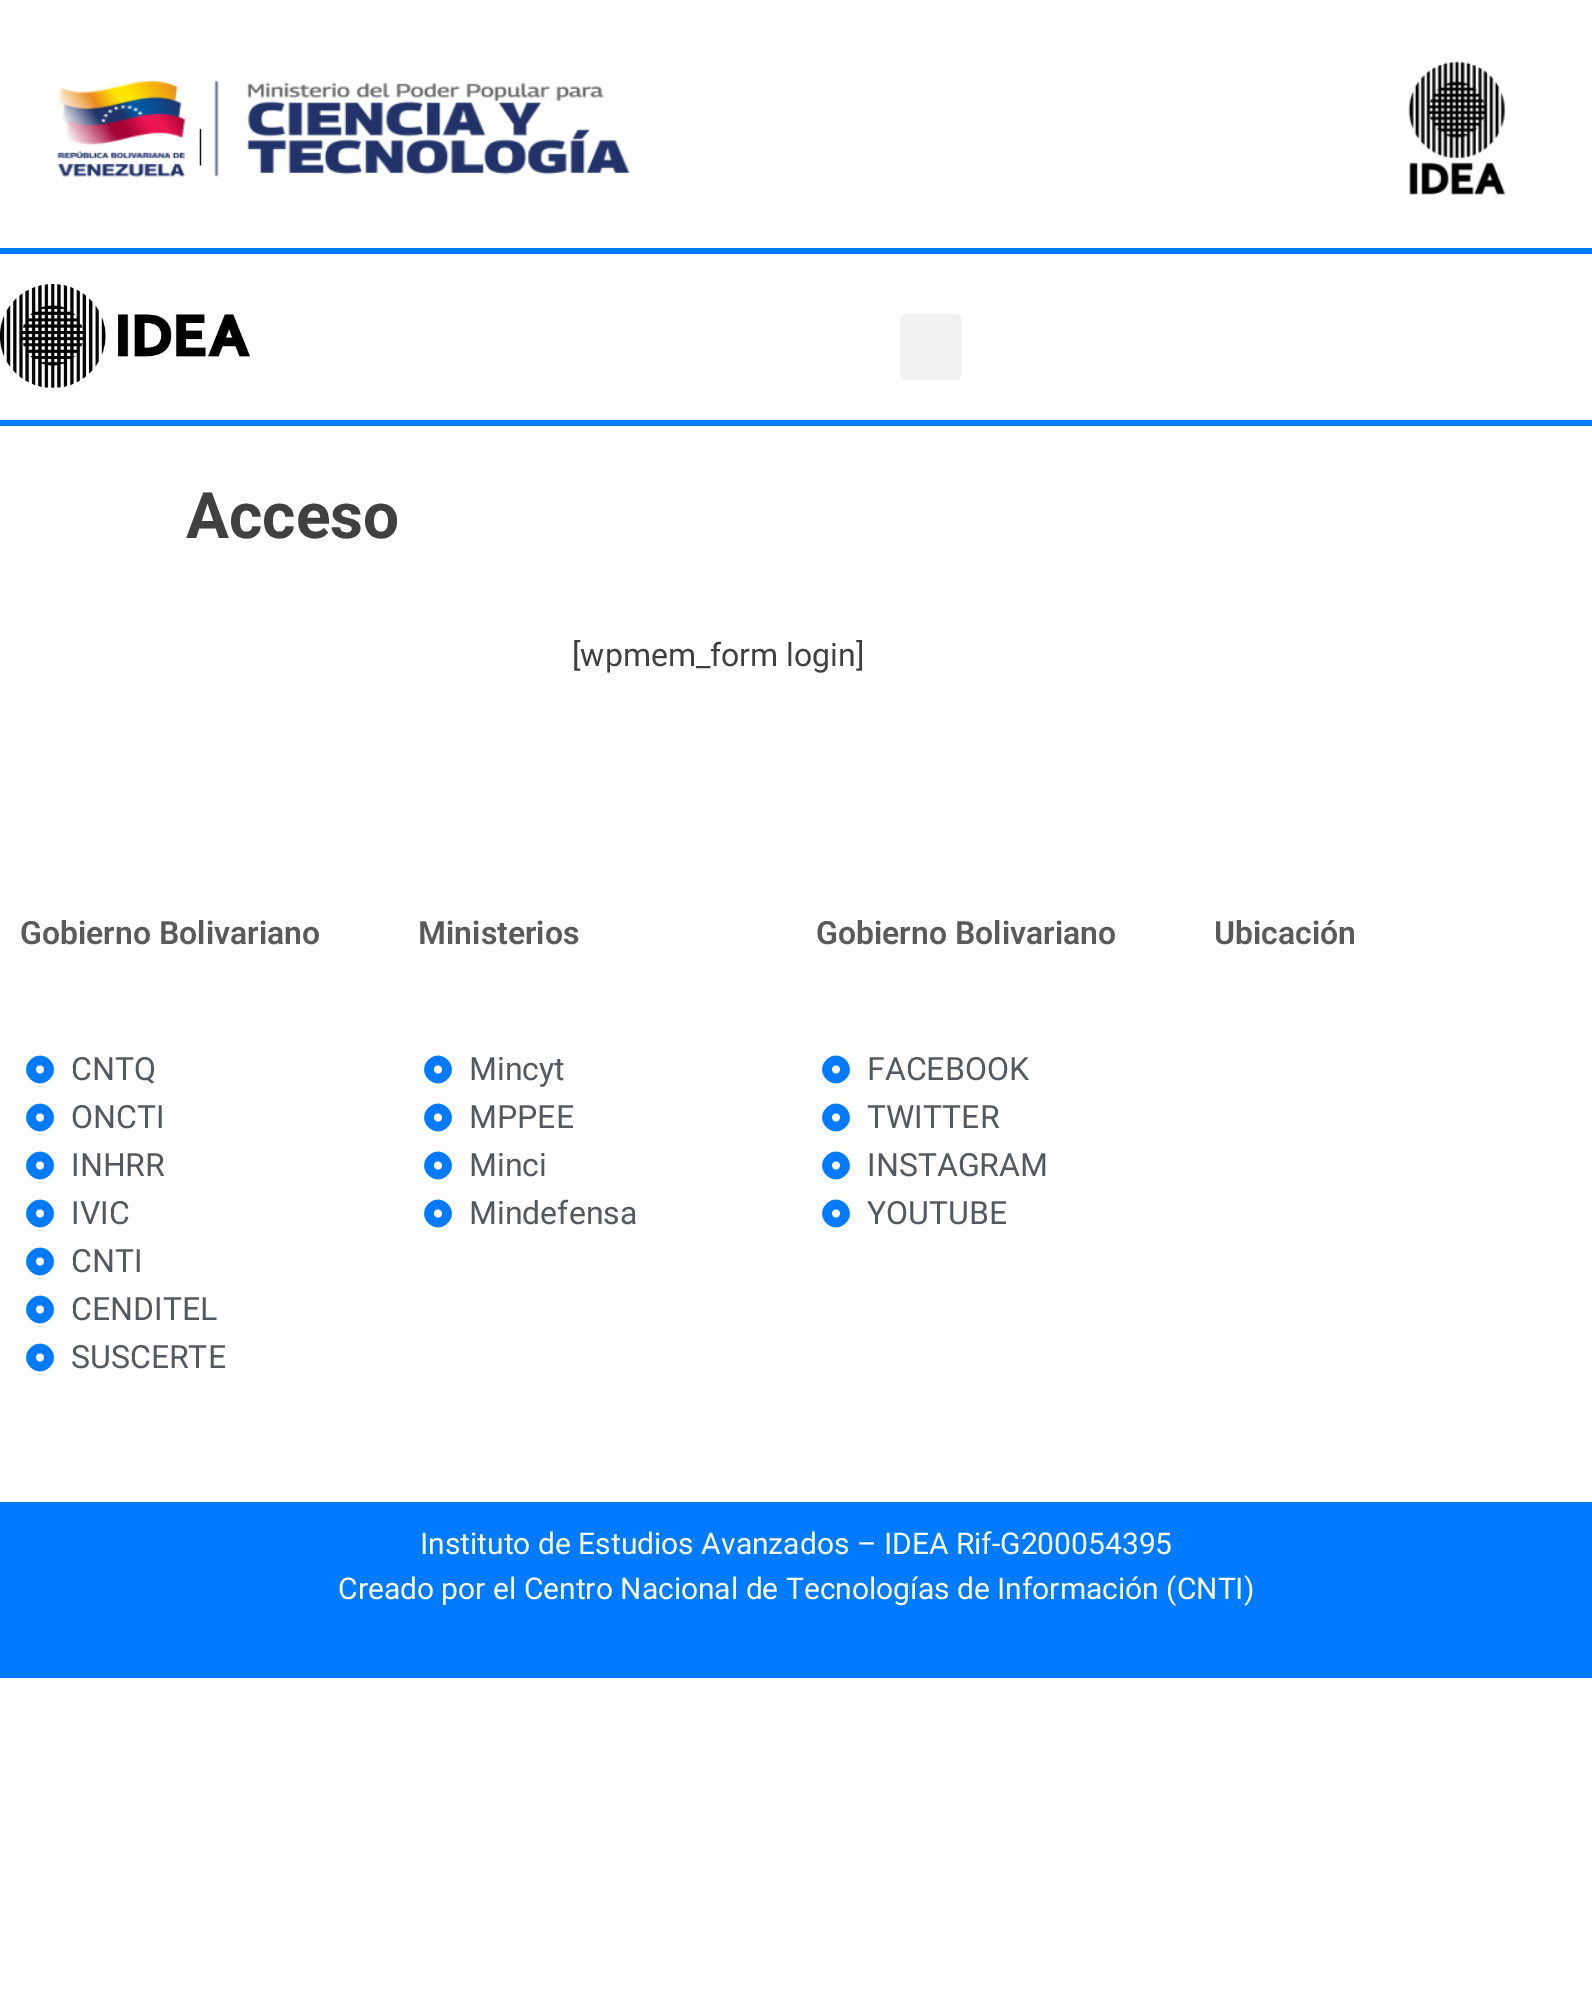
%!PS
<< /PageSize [1592 2008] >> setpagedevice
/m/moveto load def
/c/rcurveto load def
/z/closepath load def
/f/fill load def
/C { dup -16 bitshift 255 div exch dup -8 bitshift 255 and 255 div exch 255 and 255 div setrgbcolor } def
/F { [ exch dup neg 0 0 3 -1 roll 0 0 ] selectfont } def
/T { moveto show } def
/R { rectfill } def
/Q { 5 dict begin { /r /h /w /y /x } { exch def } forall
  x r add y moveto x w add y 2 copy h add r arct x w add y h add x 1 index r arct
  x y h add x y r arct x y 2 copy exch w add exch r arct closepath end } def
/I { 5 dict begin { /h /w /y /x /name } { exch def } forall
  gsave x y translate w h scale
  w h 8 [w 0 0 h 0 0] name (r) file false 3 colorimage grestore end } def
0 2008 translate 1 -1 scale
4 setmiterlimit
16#FFFFFF C
0 0 1592 2008 R
(1.rgb) 57 61 1449 134 I
16#007BFF C
0 248 1592 6 R
0 420 1592 6 R
(2.rgb) 0 284 250 104 I
16#F2F2F2 C
900 314 62 66 6 Q f
/Roboto-Bold 64 F
16#404040 C
(Acceso) 186 538 T
/Roboto-Regular 32 F
([wpmem_form login]) 572 666 T
/Roboto-SemiBold 32 F
16#5A5A5A C
(Gobierno Bolivariano) 20 944 T
16#007BFF C
30.5 1060 m 12.5 -13 32 6.5 19 19 c -12.5 13 -32 -6.5 -19 -19 c z 43 1072.5 m 4 -4 -2 -10 -6 -6 c -4 4 2 10 6 6 c z f
/Roboto-Regular 32 F
16#54595F C
(CNTQ) 71 1080 T
16#007BFF C
30.5 1108 m 12.5 -13 32 6.5 19 19 c -12.5 13 -32 -6.5 -19 -19 c z 43 1120.5 m 4 -4 -2 -10 -6 -6 c -4 4 2 10 6 6 c z f
16#54595F C
(ONCTI) 71 1128 T
16#007BFF C
30.5 1156 m 12.5 -13 32 6.5 19 19 c -12.5 13 -32 -6.5 -19 -19 c z 43 1168.5 m 4 -4 -2 -10 -6 -6 c -4 4 2 10 6 6 c z f
16#54595F C
(INHRR) 71 1176 T
16#007BFF C
30.5 1204 m 12.5 -13 32 6.5 19 19 c -12.5 13 -32 -6.5 -19 -19 c z 43 1216.5 m 4 -4 -2 -10 -6 -6 c -4 4 2 10 6 6 c z f
16#54595F C
(IVIC) 71 1224 T
16#007BFF C
30.5 1252 m 12.5 -13 32 6.5 19 19 c -12.5 13 -32 -6.5 -19 -19 c z 43 1264.5 m 4 -4 -2 -10 -6 -6 c -4 4 2 10 6 6 c z f
16#54595F C
(CNTI) 71 1272 T
16#007BFF C
30.5 1300 m 12.5 -13 32 6.5 19 19 c -12.5 13 -32 -6.5 -19 -19 c z 43 1312.5 m 4 -4 -2 -10 -6 -6 c -4 4 2 10 6 6 c z f
16#54595F C
(CENDITEL) 71 1320 T
16#007BFF C
30.5 1348 m 12.5 -13 32 6.5 19 19 c -12.5 13 -32 -6.5 -19 -19 c z 43 1360.5 m 4 -4 -2 -10 -6 -6 c -4 4 2 10 6 6 c z f
16#54595F C
(SUSCERTE) 71 1368 T
/Roboto-SemiBold 32 F
16#5A5A5A C
(Ministerios) 418 944 T
16#007BFF C
428.5 1060 m 12.5 -13 32 6.5 19 19 c -12.5 13 -32 -6.5 -19 -19 c z 441 1072.5 m 4 -4 -2 -10 -6 -6 c -4 4 2 10 6 6 c z f
/Roboto-Regular 32 F
16#54595F C
(Mincyt) 469 1080 T
16#007BFF C
428.5 1108 m 12.5 -13 32 6.5 19 19 c -12.5 13 -32 -6.5 -19 -19 c z 441 1120.5 m 4 -4 -2 -10 -6 -6 c -4 4 2 10 6 6 c z f
16#54595F C
(MPPEE) 469 1128 T
16#007BFF C
428.5 1156 m 12.5 -13 32 6.5 19 19 c -12.5 13 -32 -6.5 -19 -19 c z 441 1168.5 m 4 -4 -2 -10 -6 -6 c -4 4 2 10 6 6 c z f
16#54595F C
(Minci) 469 1176 T
16#007BFF C
428.5 1204 m 12.5 -13 32 6.5 19 19 c -12.5 13 -32 -6.5 -19 -19 c z 441 1216.5 m 4 -4 -2 -10 -6 -6 c -4 4 2 10 6 6 c z f
16#54595F C
(Mindefensa) 469 1224 T
/Roboto-SemiBold 32 F
16#5A5A5A C
(Gobierno Bolivariano) 816 944 T
16#007BFF C
826.5 1060 m 12.5 -13 32 6.5 19 19 c -12.5 13 -32 -6.5 -19 -19 c z 839 1072.5 m 4 -4 -2 -10 -6 -6 c -4 4 2 10 6 6 c z f
/Roboto-Regular 32 F
16#54595F C
(FACEBOOK) 867 1080 T
16#007BFF C
826.5 1108 m 12.5 -13 32 6.5 19 19 c -12.5 13 -32 -6.5 -19 -19 c z 839 1120.5 m 4 -4 -2 -10 -6 -6 c -4 4 2 10 6 6 c z f
16#54595F C
(TWITTER) 867 1128 T
16#007BFF C
826.5 1156 m 12.5 -13 32 6.5 19 19 c -12.5 13 -32 -6.5 -19 -19 c z 839 1168.5 m 4 -4 -2 -10 -6 -6 c -4 4 2 10 6 6 c z f
16#54595F C
(INSTAGRAM) 867 1176 T
16#007BFF C
826.5 1204 m 12.5 -13 32 6.5 19 19 c -12.5 13 -32 -6.5 -19 -19 c z 839 1216.5 m 4 -4 -2 -10 -6 -6 c -4 4 2 10 6 6 c z f
16#54595F C
(YOUTUBE) 867 1224 T
/Roboto-SemiBold 32 F
16#5A5A5A C
(Ubicación) 1214 944 T
16#007BFF C
0 1502 1592 176 R
/Roboto-Regular 30 F
16#FFFFFF C
(Instituto de Estudios Avanzados – IDEA Rif-G200054395) 420 1554 T
(Creado por el Centro Nacional de Tecnologías de Información \(CNTI\)) 338 1599 T
showpage
